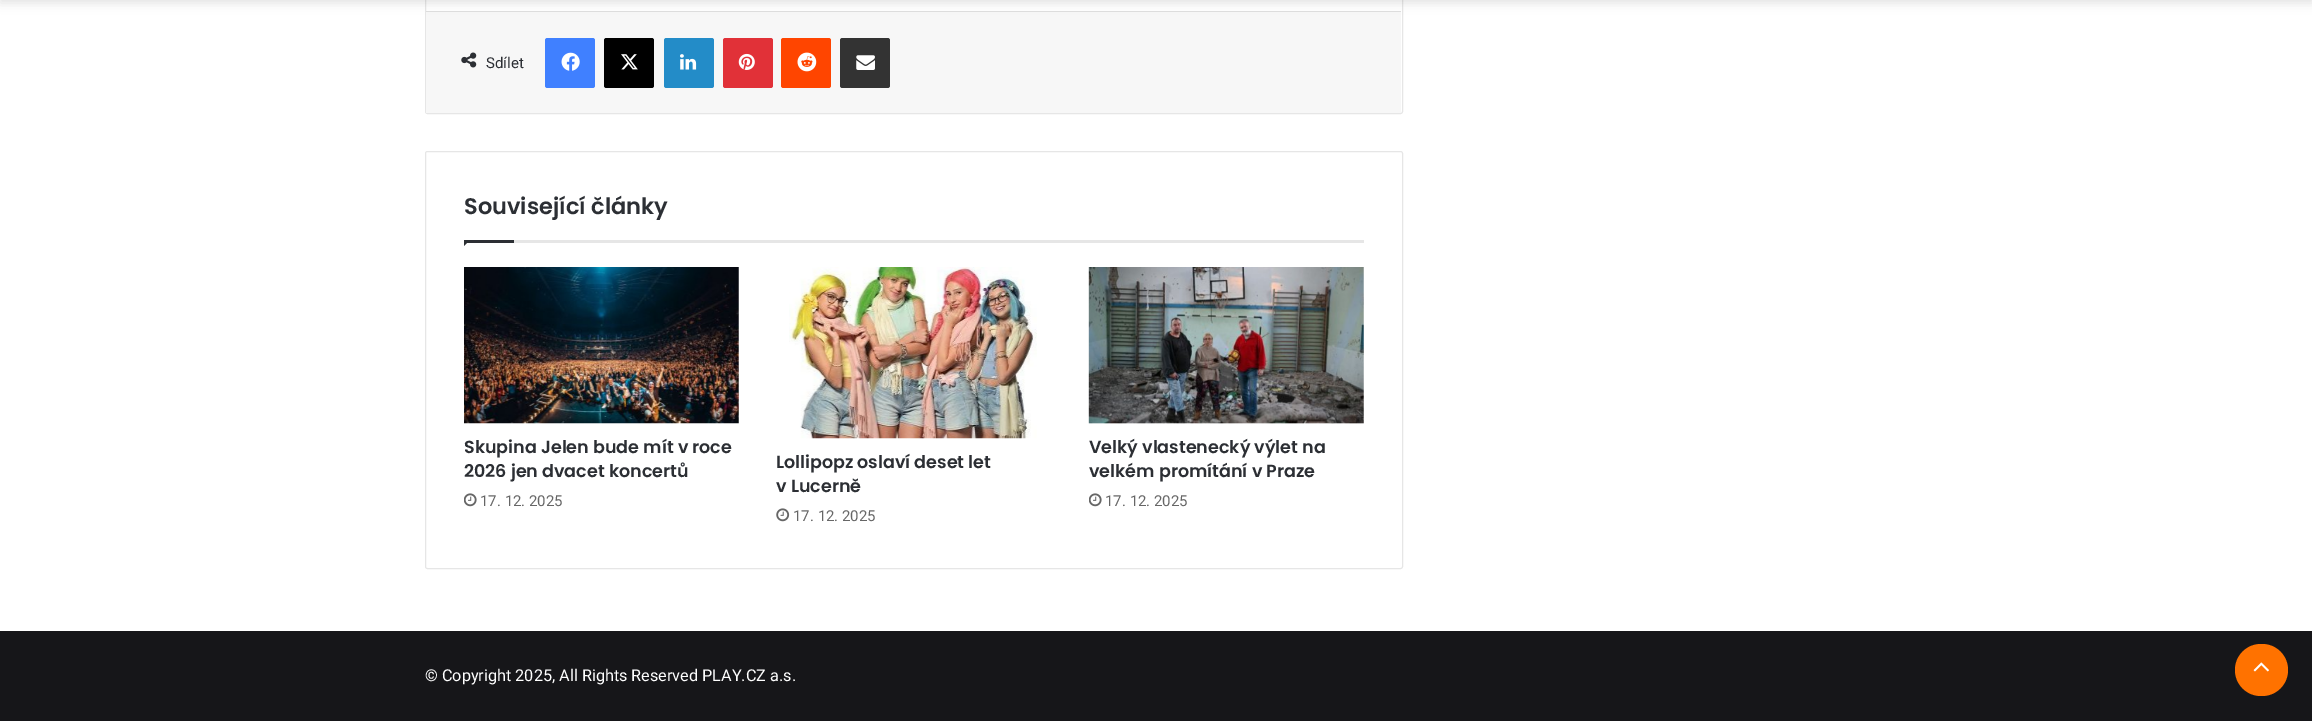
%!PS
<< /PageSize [2312 721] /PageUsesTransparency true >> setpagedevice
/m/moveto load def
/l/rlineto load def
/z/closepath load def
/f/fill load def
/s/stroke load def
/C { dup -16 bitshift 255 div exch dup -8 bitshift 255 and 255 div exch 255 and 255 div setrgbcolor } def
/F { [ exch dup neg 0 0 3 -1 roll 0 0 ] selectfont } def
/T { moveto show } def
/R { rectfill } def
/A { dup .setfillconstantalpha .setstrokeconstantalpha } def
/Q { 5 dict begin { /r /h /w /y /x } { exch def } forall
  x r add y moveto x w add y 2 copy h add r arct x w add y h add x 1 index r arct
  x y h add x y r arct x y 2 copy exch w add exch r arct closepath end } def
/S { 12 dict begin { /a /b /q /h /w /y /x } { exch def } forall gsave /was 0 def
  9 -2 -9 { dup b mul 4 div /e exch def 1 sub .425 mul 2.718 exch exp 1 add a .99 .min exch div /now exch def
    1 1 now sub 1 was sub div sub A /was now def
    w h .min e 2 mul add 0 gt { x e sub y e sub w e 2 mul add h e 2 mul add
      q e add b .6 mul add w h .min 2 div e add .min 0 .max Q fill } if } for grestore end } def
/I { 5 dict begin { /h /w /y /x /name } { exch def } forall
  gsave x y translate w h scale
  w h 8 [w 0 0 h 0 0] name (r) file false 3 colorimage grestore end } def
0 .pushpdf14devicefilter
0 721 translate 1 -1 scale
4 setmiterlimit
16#FFFFFF C
0 0 2312 721 R
16#E6E6E6 C
425.5 -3.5 977 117 2 Q s
16#F7F7F7 C
426 12 975 101 R
16#DEDEDE C
426 11 975 1 R
16#636363 C
0 -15 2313 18 0 5 .2 S
(1.rgb) 461 52 16 16 I
/Roboto-Regular 15 F
16#2C2F34 C
(Sdílet) 486 68 T
16#4080FF C
545 38 50 50 2.5 Q f
(2.rgb) 561 52 19 19 I
16#000000 C
604 38 50 50 2.5 Q f
(3.rgb) 621 54 17 16 I
16#238CC8 C
664 38 50 50 2.5 Q f
(4.rgb) 680 54 17 16 I
16#E13138 C
723 38 50 50 2.5 Q f
(5.rgb) 738 53 17 17 I
16#FF4500 C
781 38 50 50 2.5 Q f
(6.rgb) 797 52 20 20 I
16#333333 C
840 38 50 50 2.5 Q f
(7.rgb) 856 55 19 15 I
16#E6E6E6 C
425.5 151.5 977 417 2 Q s
514 240 850 3 R
/Poppins-SemiBold 22.5 F
16#2C2F34 C
(Související články) 464 214 T
464 240 m 6 0 l -6 6 l z f
464 240 50 3 R
(8.rgb) 464 267 275 157 I
/Poppins-SemiBold 17.5 F
(Skupina Jelen bude mít v roce) 464 453 T
(2026 jen dvacet koncertů) 464 477 T
(9.rgb) 464 493 13 14 I
/Roboto-Regular 15 F
16#666666 C
(17. 12. 2025) 480 506 T
(10.rgb) 789 267 248 172 I
/Poppins-SemiBold 17.5 F
16#2C2F34 C
(Lollipopz oslaví deset let) 776 468 T
(v Lucerně) 776 492 T
(11.rgb) 776 508 14 14 I
/Roboto-Regular 15 F
16#666666 C
(17. 12. 2025) 793 521 T
(12.rgb) 1088 267 276 157 I
/Poppins-SemiBold 17.5 F
16#2C2F34 C
(Velký vlastenecký výlet na) 1089 453 T
(velkém promítání v Praze) 1089 477 T
(9.rgb) 1089 493 13 14 I
/Roboto-Regular 15 F
16#666666 C
(17. 12. 2025) 1105 506 T
16#161619 C
0 631 2312 90 R
/Roboto-Regular 16.25 F
16#FFFFFF C
(© Copyright 2025, All Rights Reserved PLAY.CZ a.s.) 425 681 T
16#FF7200 C
2235 644 53 52 26 Q f
(13.rgb) 2253 662 16 10 I
.poppdf14devicefilter showpage
